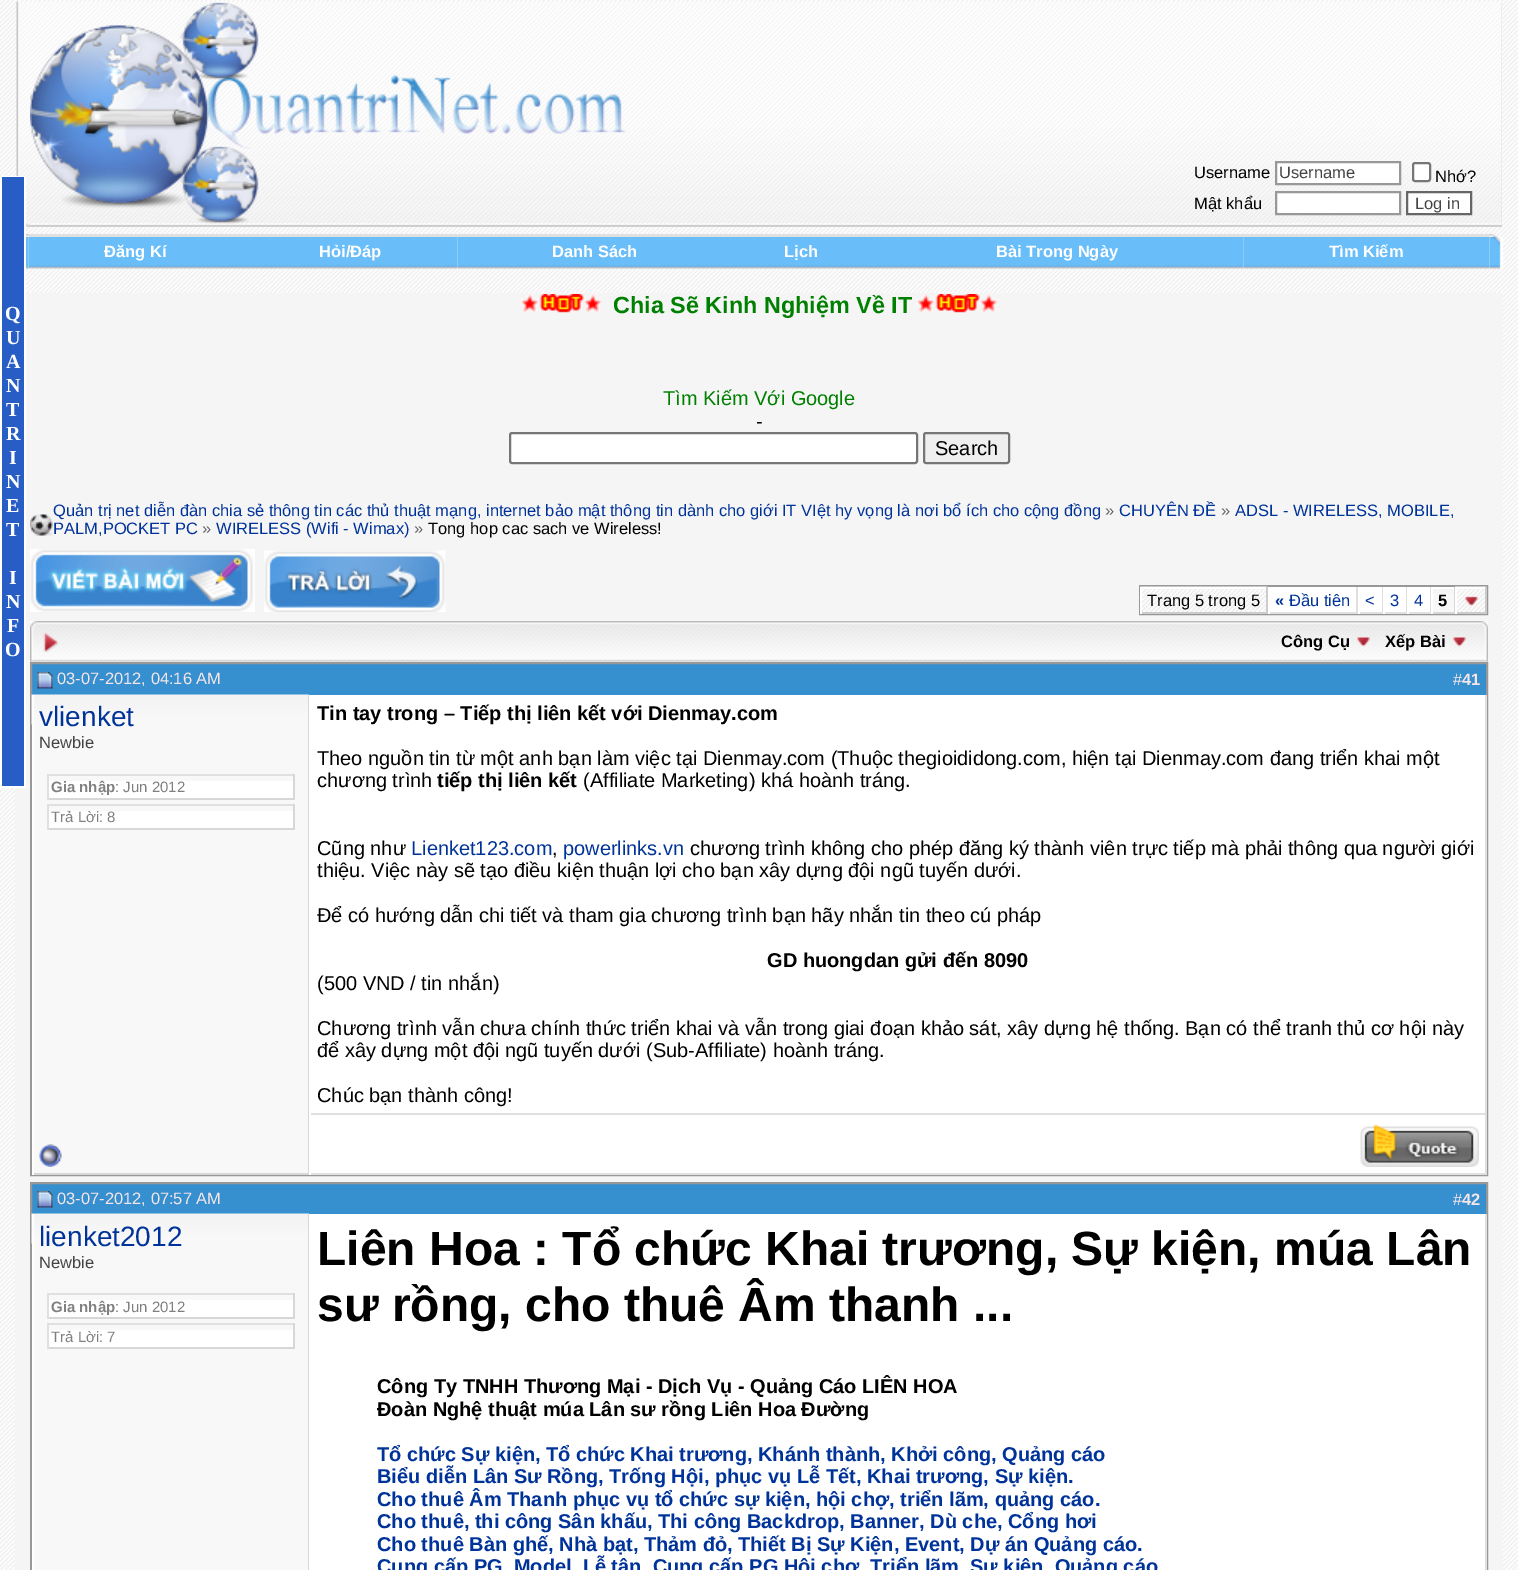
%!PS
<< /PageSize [1518 1570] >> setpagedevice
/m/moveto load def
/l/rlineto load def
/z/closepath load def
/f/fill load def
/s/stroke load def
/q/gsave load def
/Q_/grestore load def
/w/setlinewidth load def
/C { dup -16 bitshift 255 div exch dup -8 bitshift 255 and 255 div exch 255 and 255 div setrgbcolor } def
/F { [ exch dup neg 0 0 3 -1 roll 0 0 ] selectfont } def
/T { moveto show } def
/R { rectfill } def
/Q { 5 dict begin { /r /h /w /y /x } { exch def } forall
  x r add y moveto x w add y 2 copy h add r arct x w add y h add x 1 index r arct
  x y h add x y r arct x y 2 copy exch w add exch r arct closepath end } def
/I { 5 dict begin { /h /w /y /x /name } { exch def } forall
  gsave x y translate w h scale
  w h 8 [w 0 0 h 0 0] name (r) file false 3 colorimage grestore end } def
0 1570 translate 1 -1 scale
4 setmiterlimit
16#FFFFFF C
0 0 1518 1570 R
(1.rgb) 0 0 1518 1570 I
16#E0E0E0 C
26 2 1476 225 R
(2.rgb) 16 1 1486 226 I
(3.rgb) 16 1 14 226 I
(4.rgb) 30 2 596 222 I
/LiberationSans-Regular 16.5 F
16#000000 C
(Username) 1194 178 T
16#FFFFFF C
1276 162 m 124 0 l 0 22 l -124 0 l z q f Q_
16#989898 C
2 w
s
16#444444 C
(Username) 1279 178 T
16#FFFFFF C
1413 163 17 18 2 Q q f Q_
16#767676 C
s
16#000000 C
(Nhớ?) 1435 182 T
(Mật khẩu) 1194 209 T
16#FFFFFF C
1276 192 m 124 0 l 0 22 l -124 0 l z q f Q_
16#989898 C
s
16#FFFFFF C
1407 192 m 64 0 l 0 22 l -64 0 l z q f Q_
16#666666 C
s
16#444444 C
(Log in) 1415 209 T
16#E0E0E0 C
28 234 1462 3 R
(5.rgb) 26 234 3 3 I
(6.rgb) 1489 234 9 3 I
(8.rgb) 28 237 215 32 I
(7.rgb) 26 237 3 32 I
/LiberationSans-Bold 16.5 F
16#FFFFFF C
(Đăng Kí) 104 257 T
(9.rgb) 243 237 215 32 I
(Hỏi/Đáp) 319 257 T
(10.rgb) 457 237 275 32 I
(Danh Sách) 552 257 T
(11.rgb) 732 237 138 32 I
(Lịch) 784 257 T
(12.rgb) 870 237 374 32 I
(Bài Trong Ngày) 996 257 T
(13.rgb) 1243 237 247 32 I
(Tìm Kiếm) 1329 257 T
(14.rgb) 1489 237 14 32 I
16#F5F5F5 C
15 662 1488 908 R
16#FFFFFF C
0 176 26 612 R
16#295DC6 C
2 177 22 609 R
/LiberationSerif-Bold 20 F
16#FFFFFF C
(Q) 5 320 T
(U) 6 344 T
(A) 6 368 T
(N) 6 392 T
(T) 6 416 T
(R) 6 440 T
(I) 9 464 T
(N) 6 488 T
(E) 6 512 T
(T) 6 536 T
(I) 9 584 T
(N) 6 608 T
(F) 7 632 T
(O) 5 656 T
16#F5F5F5 C
26 293 1477 369 R
(15.rgb) 520 294 82 19 I
/LiberationSans-Bold 23.4 F
16#008000 C
(Chia Sẽ Kinh Nghiệm Về IT) 613 313 T
(15.rgb) 916 294 82 19 I
/LiberationSans-Regular 20 F
(Tìm Kiếm Với Google) 663 405 T
16#000000 C
(-) 756 428 T
16#FFFFFF C
510 433 407 30 2 Q q f Q_
16#767676 C
s
16#EFEFEF C
924 433 85 30 2 Q q f Q_
16#767676 C
s
16#000000 C
(Search) 935 455 T
(16.rgb) 30 514 23 22 I
/LiberationSans-Regular 16.5 F
16#003399 C
(Quản trị net diễn đàn chia sẻ thông tin các thủ thuật mạng, internet bảo mật thông tin dành cho giới IT VIệt hy vọng là nơi bổ ích cho cộng đồng) 53 516 T
16#666666 C
(») 1105 516 T
16#003399 C
(CHUYÊN ĐỀ) 1119 516 T
16#666666 C
(») 1221 516 T
16#003399 C
(ADSL - WIRELESS, MOBILE,) 1235 516 T
(PALM,POCKET PC) 53 534 T
16#666666 C
(») 202 534 T
16#003399 C
(WIRELESS \(Wifi - Wimax\)) 216 534 T
16#666666 C
(») 414 534 T
16#000000 C
(Tong hop cac sach ve Wireless!) 428 534 T
(17.rgb) 30 549 225 63 I
(18.rgb) 264 550 182 62 I
16#989898 C
1140 586 347 28 rectstroke
(19.rgb) 1140 586 128 26 I
16#FFFFFF C
1140 587 128 2 R
16#CCCCCC C
1266 587 2 27 R
1140 612 128 2 R
16#FFFFFF C
1140 587 2 27 R
16#000000 C
(Trang 5 trong 5) 1147 606 T
16#FFFFFF C
1270 587 86 25 R
16#E0E0E0 C
1356 587 2 27 R
1268 612 90 2 R
16#FFFFFF C
1268 587 2 27 R
/LiberationSans-Bold 16.5 F
16#003399 C
(«) 1275 606 T
/LiberationSans-Regular 16.5 F
(Đầu tiên) 1289 606 T
16#FFFFFF C
1360 587 22 25 R
16#E0E0E0 C
1382 587 1 27 R
1358 612 25 2 R
16#FFFFFF C
1358 587 2 27 R
16#003399 C
(<) 1365 606 T
16#FFFFFF C
1385 587 21 25 R
16#E0E0E0 C
1406 587 1 27 R
1383 612 24 2 R
16#FFFFFF C
1383 587 2 27 R
16#003399 C
(3) 1390 606 T
16#FFFFFF C
1409 587 21 25 R
16#E0E0E0 C
1430 587 1 27 R
1407 612 24 2 R
16#FFFFFF C
1407 587 2 27 R
16#003399 C
(4) 1414 606 T
16#F8F8F8 C
1433 594 21 18 R
16#FFFFFF C
1431 587 24 2 R
16#D7D7D7 C
1454 587 1 27 R
1431 612 24 2 R
16#FFFFFF C
1431 587 2 27 R
/LiberationSans-Bold 16.5 F
16#000000 C
(5) 1438 606 T
(20.rgb) 1455 586 32 26 I
16#FFFFFF C
1455 587 32 2 R
16#CCCCCC C
1485 587 2 27 R
1455 612 32 2 R
16#FFFFFF C
1455 587 2 27 R
(21.rgb) 1465 596 13 10 I
(22.rgb) 30 621 1458 41 I
(23.rgb) 30 621 29 41 I
16#000000 C
(Công Cụ) 1281 647 T
(24.rgb) 1357 637 13 10 I
(Xếp Bài) 1385 647 T
(25.rgb) 1453 637 13 10 I
(26.rgb) 1481 621 7 41 I
16#368FCE C
32 664 1454 31 R
16#989898 C
31 663 1456 512 rectstroke
(27.rgb) 37 672 16 17 I
/LiberationSans-Regular 16.5 F
16#F7E6E9 C
(03-07-2012, 04:16 AM) 57 684 T
(#) 1453 685 T
/LiberationSans-Bold 16.5 F
(41) 1462 685 T
16#F8F8F8 C
34 724 274 449 R
(28.rgb) 31 694 278 31 I
16#D7D7D7 C
308 695 1 480 R
16#FFFFFF C
32 695 2 420 R
/LiberationSans-Regular 28 F
16#003399 C
(vlienket) 39 726 T
/LiberationSans-Regular 16.5 F
16#444444 C
(Newbie) 39 748 T
16#FFFFFF C
49 781 244 17 R
16#E0E0E0 C
47 774 247 2 R
16#D7D7D7 C
293 774 2 26 R
47 798 247 2 R
16#E0E0E0 C
47 774 2 26 R
/LiberationSans-Bold 15 F
16#808080 C
(Gia nhập) 51 792 T
/LiberationSans-Regular 15 F
(: Jun 2012) 115 792 T
16#FFFFFF C
49 811 244 17 R
16#E0E0E0 C
47 804 247 2 R
16#D7D7D7 C
293 804 2 26 R
47 828 247 2 R
16#E0E0E0 C
47 804 2 26 R
16#808080 C
(Trả Lời: 8) 51 822 T
16#FFFFFF C
311 695 1174 418 R
16#E0E0E0 C
1485 695 2 480 R
309 1113 1178 2 R
16#FFFFFF C
309 695 2 420 R
/LiberationSans-Bold 20 F
16#000000 C
(Tin tay trong – Tiếp thị liên kết với Dienmay.com) 317 720 T
/LiberationSans-Regular 20 F
(Theo nguồn tin từ một anh bạn làm việc tại Dienmay.com \(Thuộc thegioididong.com, hiện tại Dienmay.com đang triển khai một) 317 765 T
(chương trình) 317 787 T
/LiberationSans-Bold 20 F
(tiếp thị liên kết) 437 787 T
/LiberationSans-Regular 20 F
(\(Affiliate Marketing\) khá hoành tráng.) 583 787 T
(Cũng như) 317 855 T
16#003399 C
(Lienket123.com) 411 855 T
16#000000 C
(,) 552 855 T
16#003399 C
(powerlinks.vn) 563 855 T
16#000000 C
(chương trình không cho phép đăng ký thành viên trực tiếp mà phải thông qua người giới) 690 855 T
(thiệu. Việc này sẽ tạo điều kiện thuận lợi cho bạn xây dựng đội ngũ tuyến dưới.) 317 877 T
(Để có hướng dẫn chi tiết và tham gia chương trình bạn hãy nhắn tin theo cú pháp) 317 922 T
/LiberationSans-Bold 20 F
(GD huongdan gửi đến 8090) 767 967 T
/LiberationSans-Regular 20 F
(\(500 VND / tin nhắn\)) 317 990 T
(Chương trình vẫn chưa chính thức triển khai và vẫn trong giai đoạn khảo sát, xây dựng hệ thống. Bạn có thể tranh thủ cơ hội này) 317 1035 T
(để xây dựng một đội ngũ tuyến dưới \(Sub-Affiliate\) hoành tráng.) 317 1057 T
(Chúc bạn thành công!) 317 1102 T
16#D7D7D7 C
32 1173 277 2 R
16#FFFFFF C
32 1115 2 60 R
(29.rgb) 39 1144 23 23 I
311 1115 1174 58 R
16#E0E0E0 C
309 1173 1178 2 R
16#FFFFFF C
309 1115 2 60 R
(30.rgb) 1360 1124 119 43 I
16#368FCE C
32 1184 1454 30 R
16#989898 C
31 1183 1456 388 rectstroke
(27.rgb) 37 1191 16 17 I
/LiberationSans-Regular 16.5 F
16#F7E6E9 C
(03-07-2012, 07:57 AM) 57 1204 T
(#) 1453 1205 T
/LiberationSans-Bold 16.5 F
(42) 1462 1205 T
16#F8F8F8 C
34 1243 274 327 R
(28.rgb) 31 1213 278 31 I
16#D7D7D7 C
308 1214 1 356 R
16#FFFFFF C
32 1214 2 356 R
/LiberationSans-Regular 28 F
16#003399 C
(lienket2012) 39 1246 T
/LiberationSans-Regular 16.5 F
16#444444 C
(Newbie) 39 1268 T
16#FFFFFF C
49 1300 244 17 R
16#E0E0E0 C
47 1293 247 2 R
16#D7D7D7 C
293 1293 2 26 R
47 1317 247 2 R
16#E0E0E0 C
47 1293 2 26 R
/LiberationSans-Bold 15 F
16#808080 C
(Gia nhập) 51 1312 T
/LiberationSans-Regular 15 F
(: Jun 2012) 115 1312 T
16#FFFFFF C
49 1330 244 17 R
16#E0E0E0 C
47 1323 247 2 R
16#D7D7D7 C
293 1323 2 26 R
47 1347 247 2 R
16#E0E0E0 C
47 1323 2 26 R
16#808080 C
(Trả Lời: 7) 51 1342 T
16#FFFFFF C
309 1214 1176 356 R
16#E0E0E0 C
1485 1214 2 356 R
/LiberationSans-Bold 48 F
16#000000 C
(Liên Hoa : Tổ chức Khai trương, Sự kiện, múa Lân) 317 1265 T
(sư rồng, cho thuê Âm thanh ...) 317 1321 T
/LiberationSans-Bold 20 F
(Công Ty TNHH Thương Mại - Dịch Vụ - Quảng Cáo LIÊN HOA) 377 1393 T
(Đoàn Nghệ thuật múa Lân sư rồng Liên Hoa Đường) 377 1416 T
16#003399 C
(Tổ chức Sự kiện, Tổ chức Khai trương, Khánh thành, Khởi công, Quảng cáo) 377 1461 T
(Biểu diễn Lân Sư Rồng, Trống Hội, phục vụ Lễ Tết, Khai trương, Sự kiện.) 377 1483 T
(Cho thuê Âm Thanh phục vụ tổ chức sự kiện, hội chợ, triển lãm, quảng cáo.) 377 1506 T
(Cho thuê, thi công Sân khấu, Thi công Backdrop, Banner, Dù che, Cổng hơi) 377 1528 T
(Cho thuê Bàn ghế, Nhà bạt, Thảm đỏ, Thiết Bị Sự Kiện, Event, Dự án Quảng cáo.) 377 1551 T
(Cung cấp PG, Model, Lễ tân, Cung cấp PG Hội chợ, Triển lãm, Sự kiện, Quảng cáo) 377 1573 T
showpage
